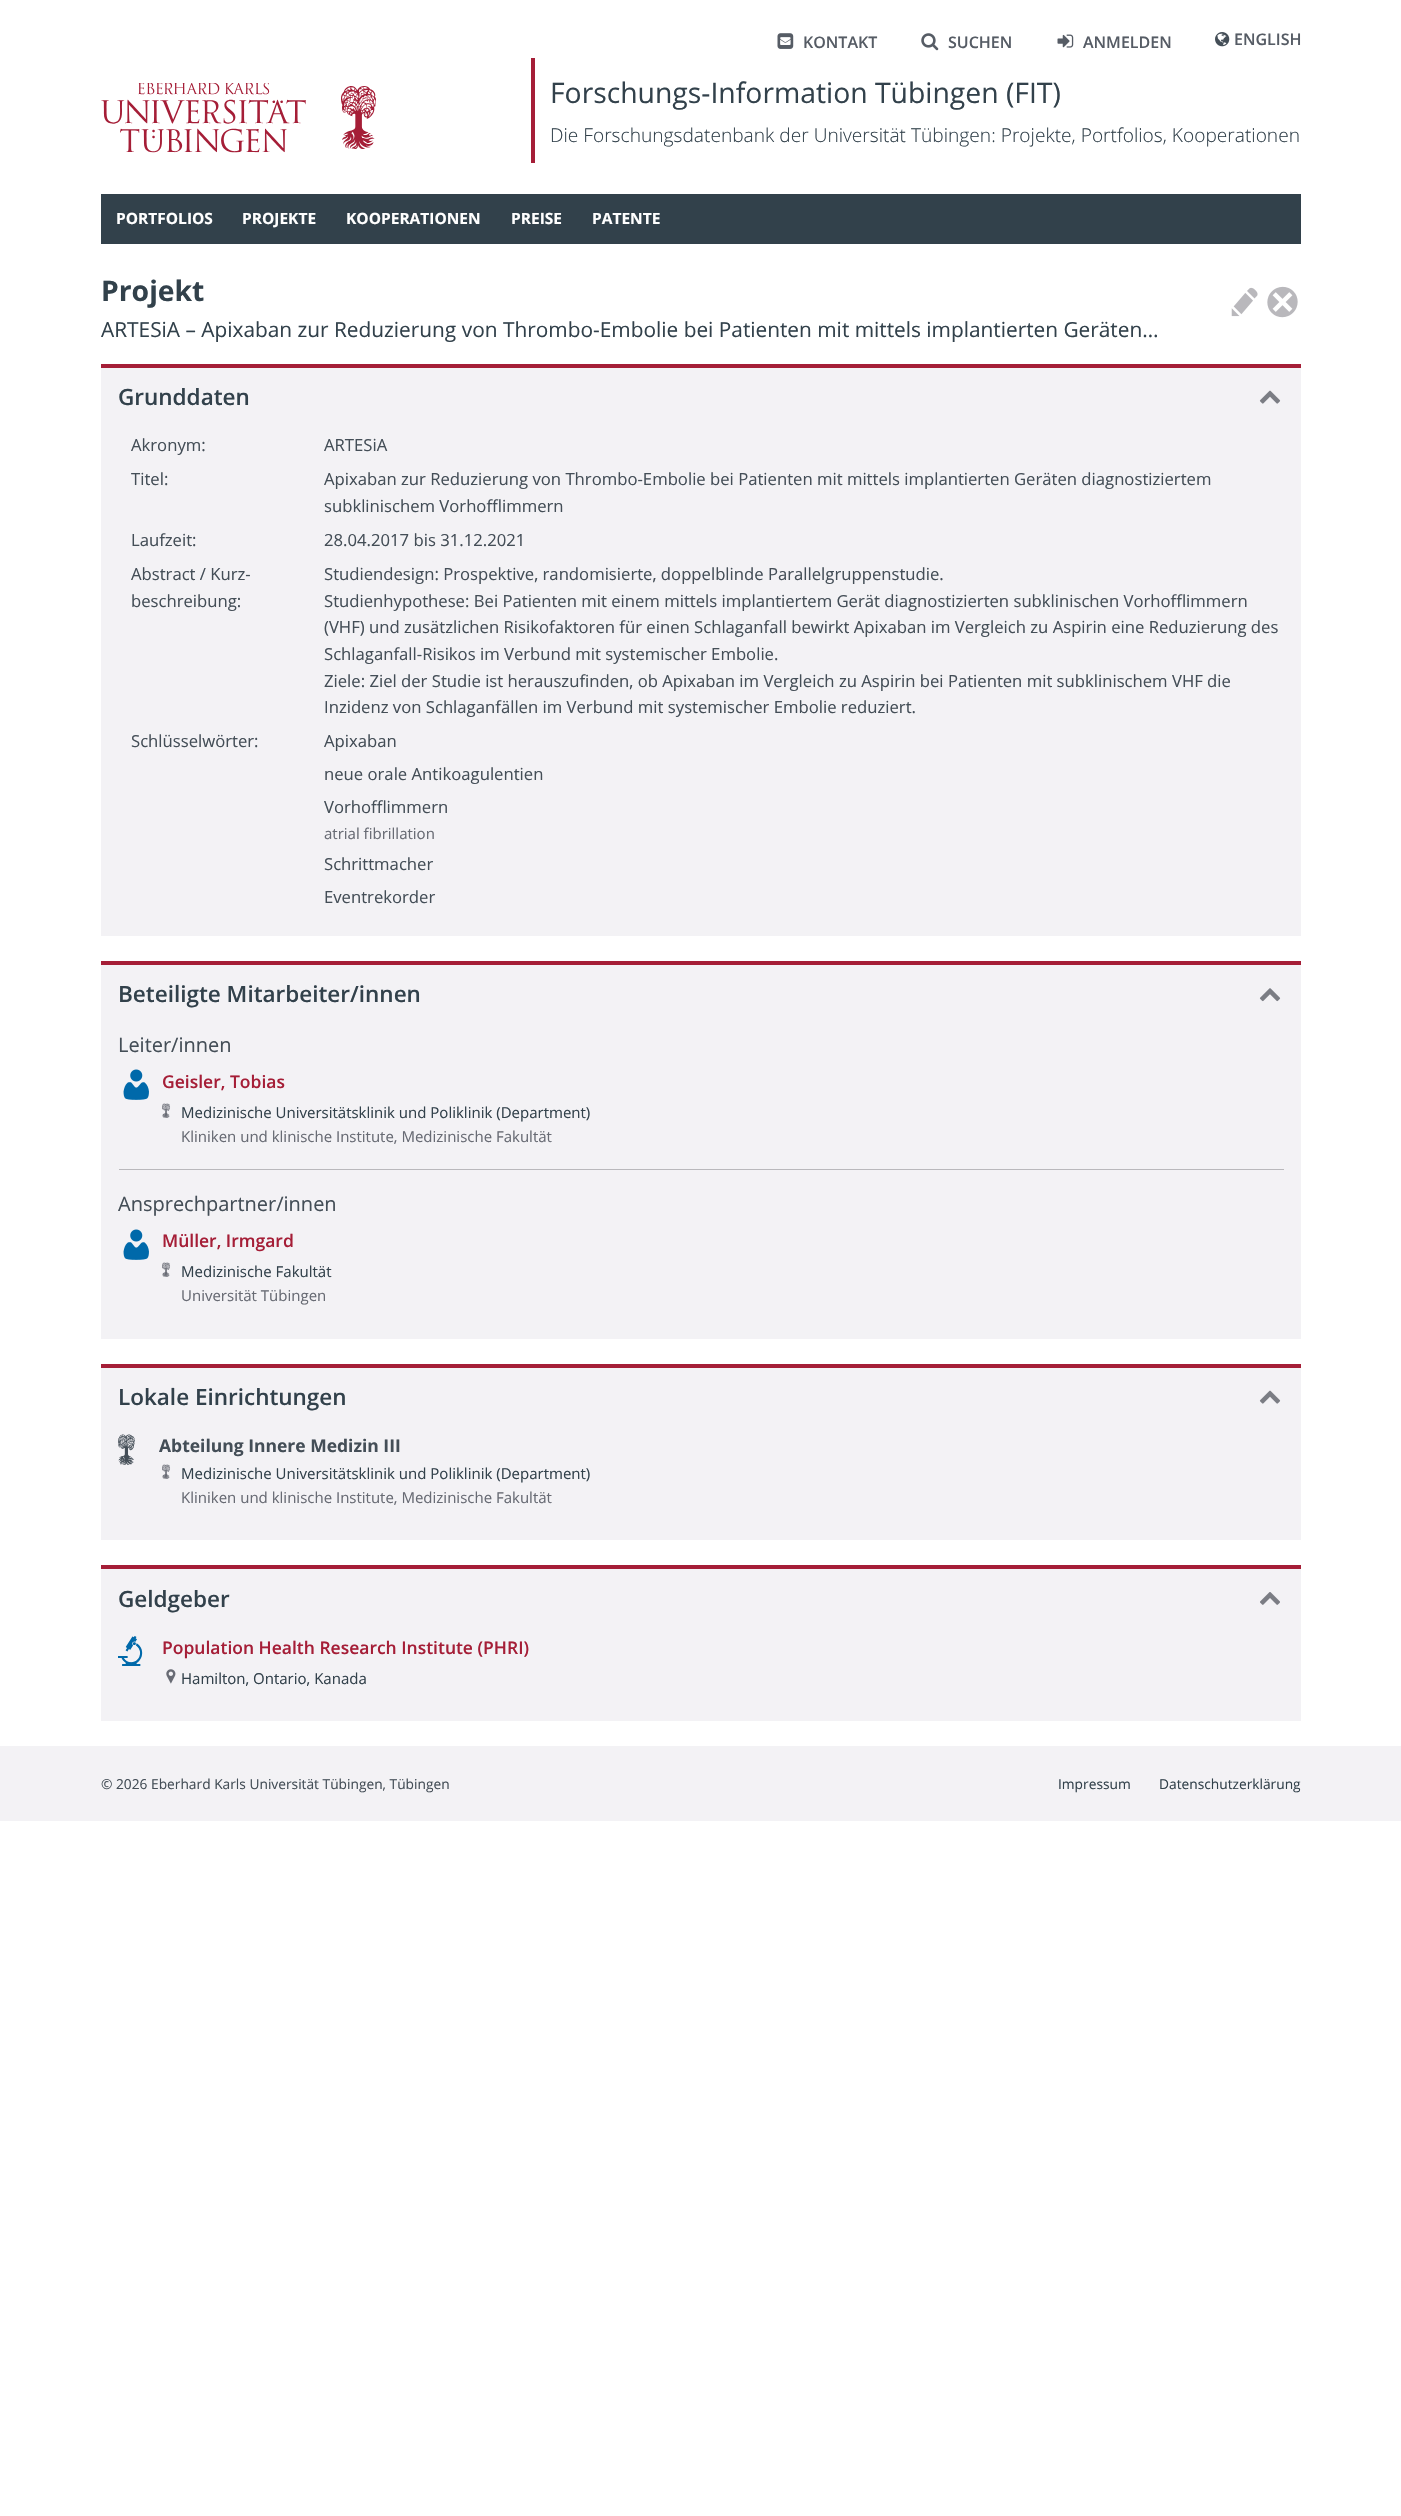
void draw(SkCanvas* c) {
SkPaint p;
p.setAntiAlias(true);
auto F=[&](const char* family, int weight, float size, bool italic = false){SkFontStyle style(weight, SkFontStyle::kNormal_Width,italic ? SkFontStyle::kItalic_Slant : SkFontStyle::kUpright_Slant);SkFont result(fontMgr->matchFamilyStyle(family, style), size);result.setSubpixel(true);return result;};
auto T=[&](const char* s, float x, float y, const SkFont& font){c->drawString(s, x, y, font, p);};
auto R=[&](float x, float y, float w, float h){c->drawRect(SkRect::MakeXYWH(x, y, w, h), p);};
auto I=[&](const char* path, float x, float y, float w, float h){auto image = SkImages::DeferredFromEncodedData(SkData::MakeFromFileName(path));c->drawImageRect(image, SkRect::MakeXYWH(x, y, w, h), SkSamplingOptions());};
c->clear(0xffffffff);
I("1.png",777,33,17,16);
auto f1 = F("Open Sans",600,16);
p.setColor(0xff565c65);
T("KONTAKT",803,48,f1);
I("2.png",921,33,18,18);
T("SUCHEN",948,48,f1);
I("3.png",1057,34,17,14);
T("ANMELDEN",1083,48,f1);
I("4.png",1215,32,15,15);
T("ENGLISH",1234,45,f1);
I("5.png",101,83,275,70);
p.setColor(0xffa51e37);
R(531,58,4,105);
auto f2 = F("Open Sans",400,28.3);
p.setColor(0xff32414b);
T("Forschungs-Information Tübingen (FIT)",550,103,f2);
auto f3 = F("Open Sans",300,19.15);
T("Die Forschungsdatenbank der Universität Tübingen: Projekte, Portfolios, Kooperationen",550,142,f3);
R(101,194,1200,50);
auto f4 = F("Open Sans",700,15.5);
p.setColor(0xffffffff);
T("PORTFOLIOS",116,224,f4);
T("PROJEKTE",242,224,f4);
T("KOOPERATIONEN",346,224,f4);
T("PREISE",511,224,f4);
T("PATENTE",592,224,f4);
auto f5 = F("Open Sans",700,28.3);
p.setColor(0xff32414b);
T("Projekt",101,301,f5);
auto f6 = F("Open Sans",400,20.83);
T("ARTESiA – Apixaban zur Reduzierung von Thrombo-Embolie bei Patienten mit mittels implantierten Geräten…",101,337,f6);
I("6.png",1231,287,27,30);
I("7.png",1267,286,31,32);
p.setColor(0xfff3f2f5);
R(101,368,1200,568);
p.setColor(0xffa51e37);
R(101,364,1200,4);
auto f7 = F("Open Sans",600,22.5);
p.setColor(0xff32414b);
T("Grunddaten",118,405,f7);
I("8.png",1259,390,22,14);
auto f8 = F("Open Sans",400,16.67);
p.setColor(0xff444e57);
T("Akronym:",131,451,f8);
T("ARTESiA",324,451,f8);
T("Titel:",131,485,f8);
T("Apixaban zur Reduzierung von Thrombo-Embolie bei Patienten mit mittels implantierten Geräten diagnostiziertem",324,485,f8);
T("subklinischem Vorhofflimmern",324,512,f8);
T("Laufzeit:",131,546,f8);
T("28.04.2017 bis 31.12.2021",324,546,f8);
T("Abstract / Kurz-",131,580,f8);
T("beschreibung:",131,607,f8);
T("Studiendesign: Prospektive, randomisierte, doppelblinde Parallelgruppenstudie.",324,580,f8);
T("Studienhypothese: Bei Patienten mit einem mittels implantiertem Gerät diagnostizierten subklinischen Vorhofflimmern",324,607,f8);
T("(VHF) und zusätzlichen Risikofaktoren für einen Schlaganfall bewirkt Apixaban im Vergleich zu Aspirin eine Reduzierung des",324,633,f8);
T("Schlaganfall-Risikos im Verbund mit systemischer Embolie.",324,660,f8);
T("Ziele: Ziel der Studie ist herauszufinden, ob Apixaban im Vergleich zu Aspirin bei Patienten mit subklinischem VHF die",324,687,f8);
T("Inzidenz von Schlaganfällen im Verbund mit systemischer Embolie reduziert.",324,713,f8);
T("Schlüsselwörter:",131,747,f8);
T("Apixaban",324,747,f8);
T("neue orale Antikoagulentien",324,780,f8);
T("Vorhofflimmern",324,813,f8);
auto f9 = F("Open Sans",400,15);
p.setColor(0xff686b74);
T("atrial fibrillation",324,839,f9);
p.setColor(0xff444e57);
T("Schrittmacher",324,870,f8);
T("Eventrekorder",324,903,f8);
p.setColor(0xfff3f2f5);
R(101,965,1200,374);
p.setColor(0xffa51e37);
R(101,961,1200,4);
p.setColor(0xff32414b);
T("Beteiligte Mitarbeiter/innen",118,1002,f7);
I("9.png",1259,988,22,14);
auto f10 = F("Open Sans",400,20);
p.setColor(0xff444e57);
T("Leiter/innen",118,1052,f10);
I("10.png",123,1069,26,31);
auto f11 = F("Open Sans",600,17.5);
p.setColor(0xffa51e37);
T("Geisler, Tobias",162,1088,f11);
auto f12 = F("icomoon",400,16.67);
p.setColor(0xff686b74);
T("@",162,1118,f12);
p.setColor(0xff32414b);
T("Medizinische Universitätsklinik und Poliklinik (Department)",181,1118,f9);
p.setColor(0xff686b74);
T("Kliniken und klinische Institute, Medizinische Fakultät",181,1142,f9);
p.setColor(0xffb9b8bc);
R(119,1169,1165,1);
p.setColor(0xff444e57);
T("Ansprechpartner/innen",118,1211,f10);
I("10.png",123,1229,26,31);
p.setColor(0xffa51e37);
T("Müller, Irmgard",162,1247,f11);
p.setColor(0xff686b74);
T("@",162,1277,f12);
p.setColor(0xff32414b);
T("Medizinische Fakultät",181,1277,f9);
p.setColor(0xff686b74);
T("Universität Tübingen",181,1301,f9);
p.setColor(0xfff3f2f5);
R(101,1368,1200,172);
p.setColor(0xffa51e37);
R(101,1364,1200,4);
p.setColor(0xff32414b);
T("Lokale Einrichtungen",118,1405,f7);
I("8.png",1259,1390,22,14);
auto f13 = F("icomoon",400,35);
p.setColor(0xff444e57);
T("@",118,1465,f13);
auto f14 = F("Open Sans",700,17.5);
T("Abteilung Innere Medizin III",159,1452,f14);
p.setColor(0xff686b74);
T("@",162,1479,f12);
p.setColor(0xff32414b);
T("Medizinische Universitätsklinik und Poliklinik (Department)",181,1479,f9);
p.setColor(0xff686b74);
T("Kliniken und klinische Institute, Medizinische Fakultät",181,1503,f9);
p.setColor(0xfff3f2f5);
R(101,1569,1200,152);
p.setColor(0xffa51e37);
R(101,1565,1200,4);
p.setColor(0xff32414b);
T("Geldgeber",118,1607,f7);
I("11.png",1260,1592,20,13);
p.setColor(0xff0069aa);
T("+",118,1666,f13);
p.setColor(0xffa51e37);
T("Population Health Research Institute (PHRI)",162,1654,f11);
I("12.png",166,1669,10,15);
p.setColor(0xff32414b);
T("Hamilton, Ontario, Kanada",181,1684,f9);
p.setColor(0xfff3f2f5);
R(0,1746,1401,75);
auto f15 = F("Open Sans",400,13.75);
p.setColor(0xff444e57);
T("© 2026 Eberhard Karls Universität Tübingen, Tübingen",101,1789,f15);
p.setColor(0xff32414b);
T("Impressum",1058,1789,f15);
T("Datenschutzerklärung",1159,1789,f15);
}
